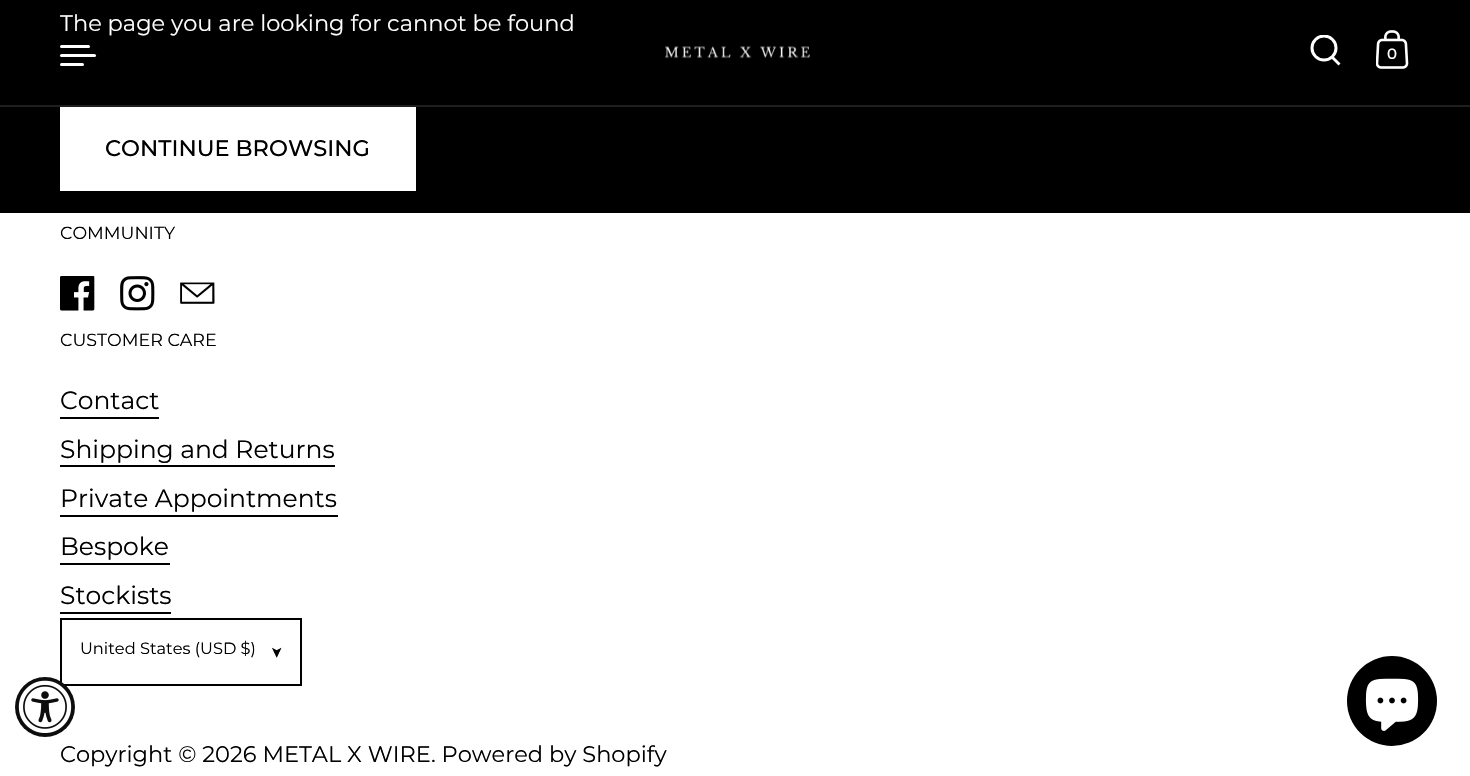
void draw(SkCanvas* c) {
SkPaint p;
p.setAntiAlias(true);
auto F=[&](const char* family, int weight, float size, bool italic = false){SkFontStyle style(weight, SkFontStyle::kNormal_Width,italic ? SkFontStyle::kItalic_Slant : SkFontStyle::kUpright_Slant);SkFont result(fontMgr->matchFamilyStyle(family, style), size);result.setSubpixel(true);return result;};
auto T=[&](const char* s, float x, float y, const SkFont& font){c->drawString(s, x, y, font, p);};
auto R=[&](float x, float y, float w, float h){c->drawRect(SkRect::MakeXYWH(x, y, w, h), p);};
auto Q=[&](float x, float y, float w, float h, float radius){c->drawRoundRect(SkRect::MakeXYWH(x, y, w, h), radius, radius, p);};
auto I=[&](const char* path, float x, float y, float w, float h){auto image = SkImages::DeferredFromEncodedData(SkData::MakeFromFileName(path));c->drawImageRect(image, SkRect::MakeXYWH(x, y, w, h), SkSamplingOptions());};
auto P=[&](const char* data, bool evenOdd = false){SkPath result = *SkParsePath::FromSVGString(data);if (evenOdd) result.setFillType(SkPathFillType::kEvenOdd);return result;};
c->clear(0xff000000);
auto f1 = F("Montserrat",400,22.5);
p.setColor(0xffffffff);
T("The page you are looking for cannot be found",60,31,f1);
R(60,107,356,84);
auto f2 = F("Montserrat",500,22.5);
p.setColor(0xff000000);
T("CONTINUE BROWSING",105,156,f2);
p.setColor(0xffffffff);
R(0,213,1470,563);
auto f3 = F("Montserrat",400,17.5);
p.setColor(0xff000000);
T("COMMUNITY",60,239,f3);
I("1.png",60,276,35,35);
I("2.png",120,276,35,35);
I("3.png",180,282,35,22);
T("CUSTOMER CARE",60,346,f3);
auto f4 = F("Montserrat",400,25);
T("Contact",60,409,f4);
R(60,417,99,2);
T("Shipping and Returns",60,458,f4);
R(60,465,275,2);
T("Private Appointments",60,507,f4);
R(60,515,278,2);
T("Bespoke",60,555,f4);
R(60,563,110,2);
T("Stockists",60,604,f4);
R(60,612,111,2);
p.setStroke(true);
p.setStrokeWidth(2);
c->drawRect(SkRect::MakeXYWH(61,619,240,66),p);
auto f5 = F("Montserrat",400,16.25);
p.setStroke(false);
T("United States (USD $)",80,654,f5);
auto f6 = F("DejaVu Sans",400,15);
c->save();
c->rotate(90,272,646);
T("➤",272,646,f6);
c->restore();
T("Copyright © 2026 METAL X WIRE. Powered by Shopify",60,762,f1);
p.setColor(0xff1f1f1f);
R(0,105,1470,2);
p.setColor(0xffffffff);
Q(60,45,30,3,1.5);
Q(60,54,36,3,1.5);
Q(60,63,24,3,1.5);
I("4.png",665,46,145,13);
c->save();
c->clipRect(SkRect::MakeXYWH(1310,35,33,31));
p.setStroke(true);
p.setStrokeWidth(3);
c->drawCircle(1324,48,12,p);
c->restore();
p.setStroke(false);
c->drawPath(P("M1331.5 58.5l2-2l7 7l-2 2z"),p);
I("5.png",1376,30,33,39);
auto f7 = F("Montserrat",500,15);
T("0",1387,59,f7);
p.setColor(0xff0d0d0d);
c->drawCircle(45,707,30,p);
I("6.png",18,680,54,53);
p.setColor(0xff000000);
c->drawCircle(1392,701,45,p);
I("7.png",1365,678,54,53);
}
